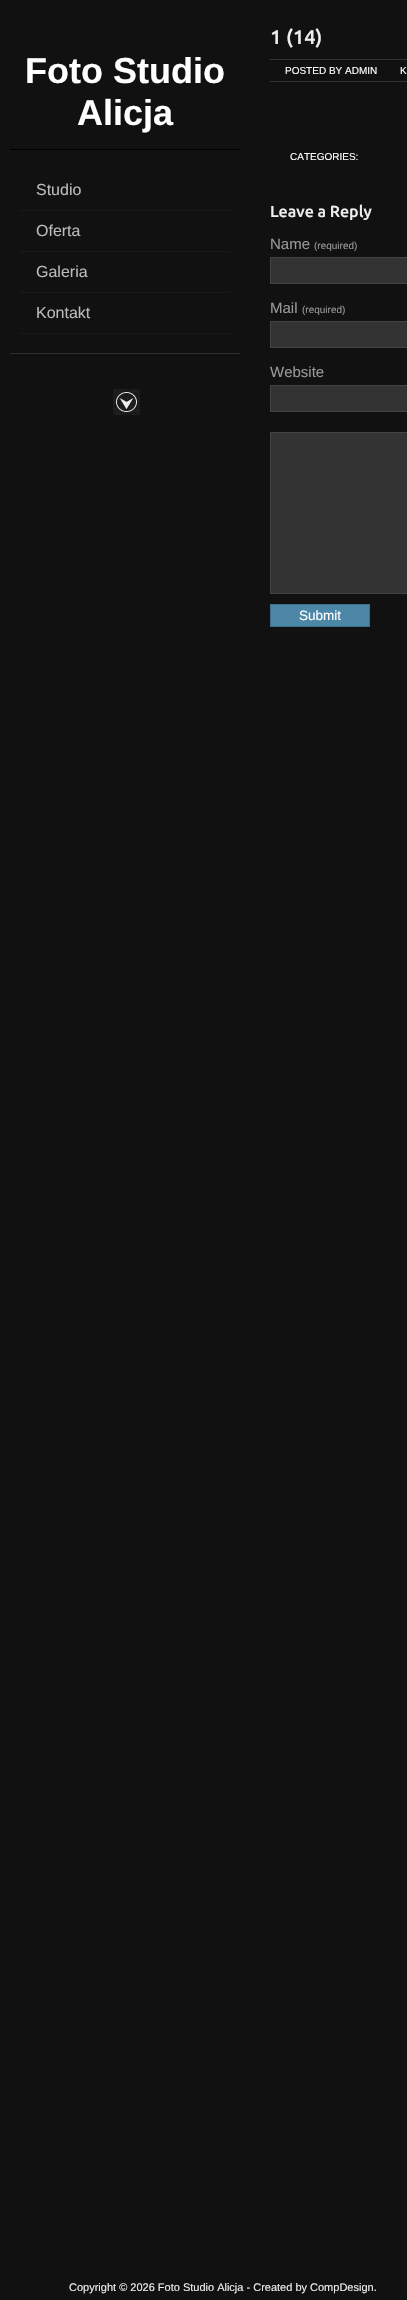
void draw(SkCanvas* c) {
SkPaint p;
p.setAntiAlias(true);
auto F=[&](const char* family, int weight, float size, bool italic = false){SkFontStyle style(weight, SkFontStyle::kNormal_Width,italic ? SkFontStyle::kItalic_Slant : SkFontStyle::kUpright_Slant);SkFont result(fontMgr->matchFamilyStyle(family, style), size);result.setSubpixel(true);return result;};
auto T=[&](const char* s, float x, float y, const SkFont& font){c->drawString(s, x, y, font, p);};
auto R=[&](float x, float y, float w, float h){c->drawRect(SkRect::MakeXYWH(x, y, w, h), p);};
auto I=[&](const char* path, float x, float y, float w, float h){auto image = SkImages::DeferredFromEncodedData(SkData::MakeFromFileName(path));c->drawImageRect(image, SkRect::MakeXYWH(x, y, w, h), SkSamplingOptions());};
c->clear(0xff111111);
p.setColor(0xff000000);
R(10,149,230,1);
auto f1 = F("Liberation Sans",700,36);
p.setColor(0xffffffff);
T("Foto Studio",25,83,f1);
T("Alicja",77,125,f1);
p.setColor(0xff191919);
R(20,210,210,1);
auto f2 = F("Liberation Sans",400,16);
p.setColor(0xffbbbbbb);
T("Studio",36,195,f2);
p.setColor(0xff191919);
R(20,251,210,1);
p.setColor(0xffbbbbbb);
T("Oferta",36,236,f2);
p.setColor(0xff191919);
R(20,292,210,1);
p.setColor(0xffbbbbbb);
T("Galeria",36,277,f2);
p.setColor(0xff191919);
R(20,333,210,1);
p.setColor(0xffbbbbbb);
T("Kontakt",36,318,f2);
p.setColor(0xff302f2f);
R(10,353,230,1);
I("1.png",113,389,27,26);
auto f3 = F("Ubuntu",500,20);
p.setColor(0xffeeeeee);
T("1 (14)",270,44,f3);
p.setColor(0xff333333);
R(270,59,137,1);
R(270,81,137,1);
auto f4 = F("Liberation Sans",400,10);
p.setColor(0xffffffff);
T("POSTED BY ADMIN",285,74,f4);
T("K",400,74,f4);
T("CATEGORIES:",290,160,f4);
auto f5 = F("Ubuntu",500,16);
p.setColor(0xffeeeeee);
T("Leave a Reply",270,217,f5);
auto f6 = F("Liberation Sans",400,15);
p.setColor(0xff999999);
T("Name",270,249,f6);
T("(required)",314,249,f4);
p.setColor(0xff333333);
c->drawRect(SkRect::MakeXYWH(270.5,257.5,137,26),p);
p.setStroke(true);
p.setStrokeWidth(1);
p.setColor(0xff444444);
c->drawRect(SkRect::MakeXYWH(270.5,257.5,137,26),p);
p.setStroke(false);
p.setColor(0xff999999);
T("Mail",270,313,f6);
T("(required)",302,313,f4);
p.setColor(0xff333333);
c->drawRect(SkRect::MakeXYWH(270.5,321.5,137,26),p);
p.setStroke(true);
p.setColor(0xff444444);
c->drawRect(SkRect::MakeXYWH(270.5,321.5,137,26),p);
p.setStroke(false);
p.setColor(0xff999999);
T("Website",270,377,f6);
p.setColor(0xff333333);
c->drawRect(SkRect::MakeXYWH(270.5,385.5,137,26),p);
p.setStroke(true);
p.setColor(0xff444444);
c->drawRect(SkRect::MakeXYWH(270.5,385.5,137,26),p);
p.setStroke(false);
p.setColor(0xff333333);
c->drawRect(SkRect::MakeXYWH(270.5,432.5,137,161),p);
p.setStroke(true);
p.setColor(0xff444444);
c->drawRect(SkRect::MakeXYWH(270.5,432.5,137,161),p);
p.setStroke(false);
p.setColor(0xff4d87a7);
c->drawRect(SkRect::MakeXYWH(270.5,604.5,99,22),p);
p.setStroke(true);
p.setColor(0xff3c708c);
c->drawRect(SkRect::MakeXYWH(270.5,604.5,99,22),p);
auto f7 = F("Liberation Sans",400,13.5);
p.setStroke(false);
p.setColor(0xffffffff);
T("Submit",299,620,f7);
auto f8 = F("Liberation Sans",400,11);
p.setColor(0xffeeeeee);
T("Copyright © 2026 Foto Studio Alicja - Created by CompDesign.",69,2291,f8);
}
